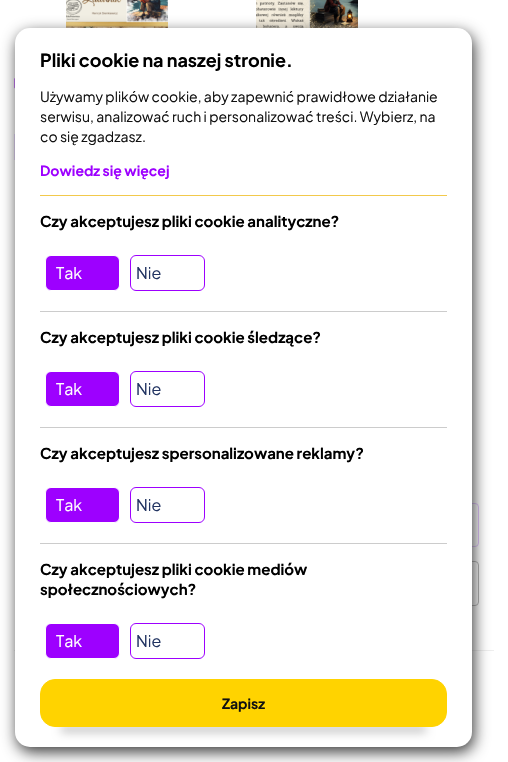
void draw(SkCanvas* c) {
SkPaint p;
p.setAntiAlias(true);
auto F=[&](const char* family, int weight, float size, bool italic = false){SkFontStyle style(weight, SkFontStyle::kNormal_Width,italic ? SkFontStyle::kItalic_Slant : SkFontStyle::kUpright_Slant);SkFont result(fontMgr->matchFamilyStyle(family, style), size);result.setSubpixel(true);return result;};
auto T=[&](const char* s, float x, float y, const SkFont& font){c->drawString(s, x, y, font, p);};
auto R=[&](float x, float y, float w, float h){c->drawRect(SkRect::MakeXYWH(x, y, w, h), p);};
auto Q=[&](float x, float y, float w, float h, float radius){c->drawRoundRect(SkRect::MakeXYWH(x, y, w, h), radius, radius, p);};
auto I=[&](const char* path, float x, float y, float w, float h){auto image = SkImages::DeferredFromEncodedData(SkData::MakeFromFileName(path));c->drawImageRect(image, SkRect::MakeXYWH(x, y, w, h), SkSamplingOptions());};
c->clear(0xffffffff);
I("1.png",66,0,102,28);
I("2.png",256,0,102,28);
I("3.png",14,78,1,11);
p.setColor(0xffeadaff);
R(14,134,1,26);
p.setStroke(true);
p.setStrokeWidth(1);
p.setColor(0xffe1c2ff);
c->drawRoundRect(SkRect::MakeXYWH(396.5,503.5,82,43),3.5,3.5,p);
p.setColor(0xffb1b1b1);
c->drawRoundRect(SkRect::MakeXYWH(29.5,561.5,449,44),3.5,3.5,p);
p.setStroke(false);
p.setColor(0xffeeeeee);
R(14,650,480,1);
p.setColor(0xff393939);
p.setMaskFilter(SkMaskFilter::MakeBlur(kNormal_SkBlurStyle, 7.5));
c->drawRoundRect(SkRect::MakeXYWH(17,33,457,719),15,15,p);
p.setMaskFilter(nullptr);
p.setColor(0xffffffff);
Q(15,28,457,719,15);
auto f1 = F("Plus Jakarta Sans",700,18);
p.setColor(0xff000000);
T("Pliki cookie na naszej stronie.",40,67,f1);
auto f2 = F("Plus Jakarta Sans",400,14);
p.setColor(0xff111111);
T("Używamy plików cookie, aby zapewnić prawidłowe działanie",40,102,f2);
T("serwisu, analizować ruch i personalizować treści. Wybierz, na",40,122,f2);
T("co się zgadzasz.",40,142,f2);
auto f3 = F("Plus Jakarta Sans",700,14);
p.setColor(0xff9d00ff);
T("Dowiedz się więcej",40,176,f3);
p.setColor(0xfff2c94c);
R(40,195,407,1);
p.setColor(0xffcccccc);
R(40,311,407,1);
auto f4 = F("Plus Jakarta Sans",700,15);
p.setColor(0xff000000);
T("Czy akceptujesz pliki cookie analityczne?",40,227,f4);
p.setColor(0xff9d00ff);
c->drawRoundRect(SkRect::MakeXYWH(45.5,255.5,74,35),5.5,5.5,p);
p.setStroke(true);
p.setColor(0xffffffff);
c->drawRoundRect(SkRect::MakeXYWH(45.5,255.5,74,35),5.5,5.5,p);
auto f5 = F("Plus Jakarta Sans",400,16);
p.setStroke(false);
T("Tak",56,279,f5);
p.setStroke(true);
p.setColor(0xff9d00ff);
c->drawRoundRect(SkRect::MakeXYWH(130.5,255.5,74,35),5.5,5.5,p);
p.setStroke(false);
p.setColor(0xff223462);
T("Nie",136,279,f5);
p.setColor(0xffcccccc);
R(40,427,407,1);
p.setColor(0xff000000);
T("Czy akceptujesz pliki cookie śledzące?",40,343,f4);
p.setColor(0xff9d00ff);
c->drawRoundRect(SkRect::MakeXYWH(45.5,371.5,74,35),5.5,5.5,p);
p.setStroke(true);
p.setColor(0xffffffff);
c->drawRoundRect(SkRect::MakeXYWH(45.5,371.5,74,35),5.5,5.5,p);
p.setStroke(false);
T("Tak",56,395,f5);
p.setStroke(true);
p.setColor(0xff9d00ff);
c->drawRoundRect(SkRect::MakeXYWH(130.5,371.5,74,35),5.5,5.5,p);
p.setStroke(false);
p.setColor(0xff223462);
T("Nie",136,395,f5);
p.setColor(0xffcccccc);
R(40,543,407,1);
p.setColor(0xff000000);
T("Czy akceptujesz spersonalizowane reklamy?",40,459,f4);
p.setColor(0xff9d00ff);
c->drawRoundRect(SkRect::MakeXYWH(45.5,487.5,74,35),5.5,5.5,p);
p.setStroke(true);
p.setColor(0xffffffff);
c->drawRoundRect(SkRect::MakeXYWH(45.5,487.5,74,35),5.5,5.5,p);
p.setStroke(false);
T("Tak",56,511,f5);
p.setStroke(true);
p.setColor(0xff9d00ff);
c->drawRoundRect(SkRect::MakeXYWH(130.5,487.5,74,35),5.5,5.5,p);
p.setStroke(false);
p.setColor(0xff223462);
T("Nie",136,511,f5);
p.setColor(0xff000000);
T("Czy akceptujesz pliki cookie mediów",40,575,f4);
T("społecznościowych?",40,595,f4);
p.setColor(0xff9d00ff);
c->drawRoundRect(SkRect::MakeXYWH(45.5,623.5,74,35),5.5,5.5,p);
p.setStroke(true);
p.setColor(0xffffffff);
c->drawRoundRect(SkRect::MakeXYWH(45.5,623.5,74,35),5.5,5.5,p);
p.setStroke(false);
T("Tak",56,647,f5);
p.setStroke(true);
p.setColor(0xff9d00ff);
c->drawRoundRect(SkRect::MakeXYWH(130.5,623.5,74,35),5.5,5.5,p);
p.setStroke(false);
p.setColor(0xff223462);
T("Nie",136,647,f5);
p.setColor(0x47000000);
p.setMaskFilter(SkMaskFilter::MakeBlur(kNormal_SkBlurStyle, 5));
c->drawRect(SkRect::MakeXYWH(61,726,365,6),p);
p.setMaskFilter(nullptr);
p.setColor(0xffffd300);
c->drawRoundRect(SkRect::MakeXYWH(40.5,679.5,406,47),14.5,14.5,p);
p.setStroke(true);
c->drawRoundRect(SkRect::MakeXYWH(40.5,679.5,406,47),14.5,14.5,p);
p.setStroke(false);
p.setColor(0xff111111);
T("Zapisz",222,709,f3);
}
